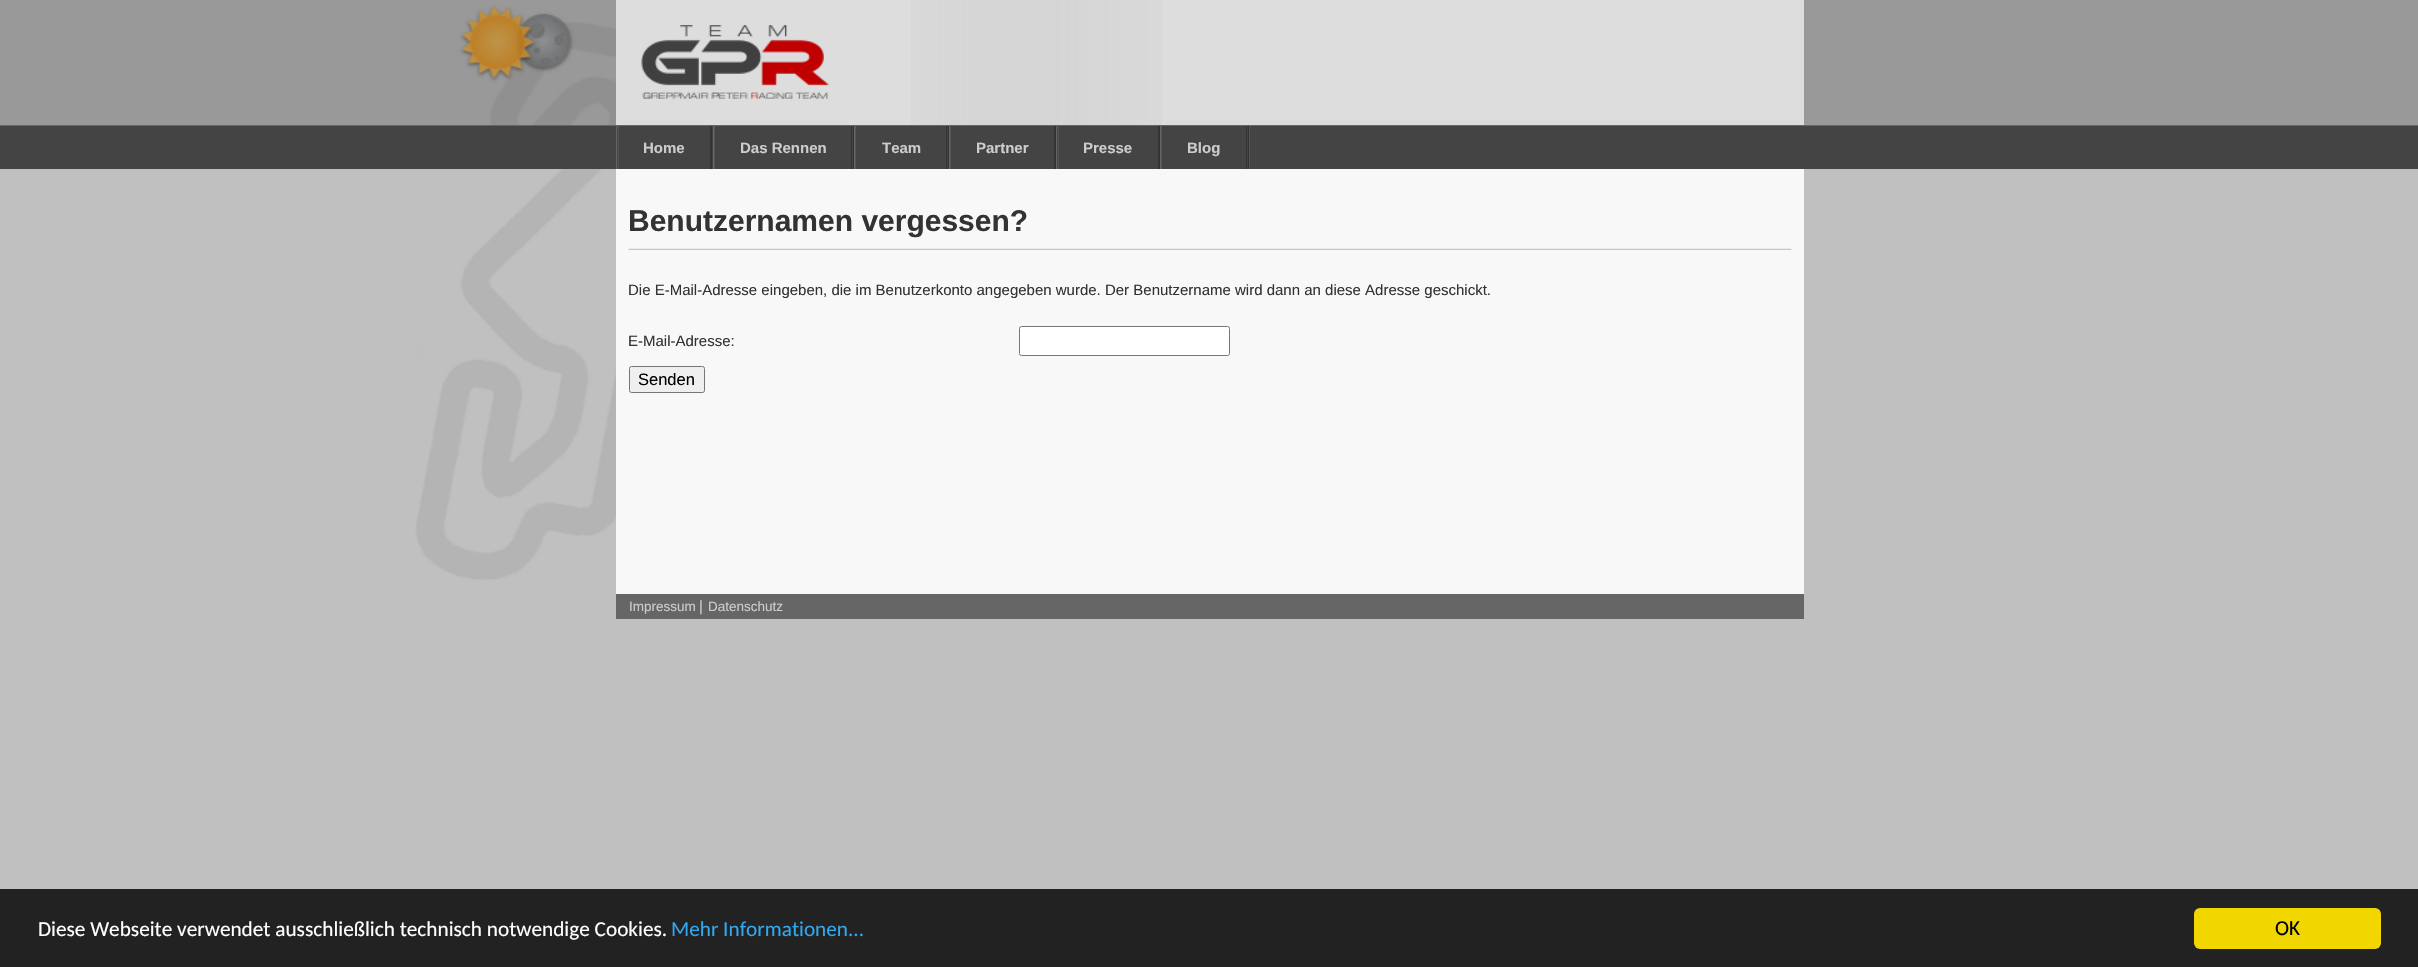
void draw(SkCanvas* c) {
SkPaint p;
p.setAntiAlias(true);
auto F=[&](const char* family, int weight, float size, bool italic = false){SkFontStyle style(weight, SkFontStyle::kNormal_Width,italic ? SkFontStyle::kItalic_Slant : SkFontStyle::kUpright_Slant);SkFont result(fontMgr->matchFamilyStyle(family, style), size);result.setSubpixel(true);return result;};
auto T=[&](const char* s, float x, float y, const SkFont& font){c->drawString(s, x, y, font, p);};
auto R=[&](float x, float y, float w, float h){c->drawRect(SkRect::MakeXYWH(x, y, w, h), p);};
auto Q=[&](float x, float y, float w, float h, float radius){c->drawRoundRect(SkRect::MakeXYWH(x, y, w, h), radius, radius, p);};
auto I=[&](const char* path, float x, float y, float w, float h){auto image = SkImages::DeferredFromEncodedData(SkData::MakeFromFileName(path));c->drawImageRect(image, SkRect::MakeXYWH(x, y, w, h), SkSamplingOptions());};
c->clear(0xffc0c0c0);
I("1.png",415,5,201,575);
p.setColor(0x40242424);
R(0,0,2418,125);
p.setColor(0xffdddddd);
R(616,0,1188,125);
I("2.png",641,25,188,74);
I("3.png",911,0,251,125);
p.setColor(0xff444444);
R(0,126,2418,43);
p.setColor(0xff666666);
R(0,125,2418,1);
p.setColor(0xff555555);
R(1249,126,1,43);
p.setColor(0xff333333);
R(710,126,2,43);
p.setColor(0xff666666);
R(616,126,1,43);
p.setColor(0xff555555);
R(618,126,1,43);
auto f1 = F("Liberation Sans",700,15);
p.setColor(0xffcccccc);
T("Home",643,153,f1);
p.setColor(0xff333333);
R(853,126,1,43);
p.setColor(0xff666666);
R(713,126,1,43);
p.setColor(0xff333333);
R(851,126,1,43);
p.setColor(0xff555555);
R(714,126,1,43);
p.setColor(0xffcccccc);
T("Das Rennen",740,153,f1);
p.setColor(0xff333333);
R(948,126,1,43);
p.setColor(0xff666666);
R(854,126,1,43);
p.setColor(0xff333333);
R(946,126,1,43);
p.setColor(0xff555555);
R(855,126,1,43);
p.setColor(0xffcccccc);
T("Team",882,153,f1);
p.setColor(0xff333333);
R(1054,126,2,43);
p.setColor(0xff666666);
R(949,126,1,43);
p.setColor(0xff555555);
R(950,126,1,43);
p.setColor(0xffcccccc);
T("Partner",976,153,f1);
p.setColor(0xff333333);
R(1158,126,2,43);
p.setColor(0xff666666);
R(1056,126,1,43);
p.setColor(0xff555555);
R(1058,126,1,43);
p.setColor(0xffcccccc);
T("Presse",1083,153,f1);
p.setColor(0xff333333);
R(1248,126,1,43);
p.setColor(0xff666666);
R(1160,126,1,43);
p.setColor(0xff333333);
R(1246,126,1,43);
p.setColor(0xff555555);
R(1161,126,1,43);
p.setColor(0xffcccccc);
T("Blog",1187,153,f1);
p.setColor(0xfff8f8f8);
R(616,169,1188,425);
I("4.png",628,248,1164,2);
auto f2 = F("Liberation Sans",700,30);
p.setColor(0xff333333);
T("Benutzernamen vergessen?",628,231,f2);
auto f3 = F("Liberation Sans",400,15);
T("Die E-Mail-Adresse eingeben, die im Benutzerkonto angegeben wurde. Der Benutzername wird dann an diese Adresse geschickt.",628,295,f3);
T("E-Mail-Adresse:",628,346,f3);
p.setColor(0xffffffff);
c->drawRoundRect(SkRect::MakeXYWH(1019.5,326.5,210,29),2,2,p);
p.setStroke(true);
p.setStrokeWidth(1);
p.setColor(0xff767676);
c->drawRoundRect(SkRect::MakeXYWH(1019.5,326.5,210,29),2,2,p);
p.setStroke(false);
p.setColor(0xffefefef);
c->drawRoundRect(SkRect::MakeXYWH(629.5,366.5,75,26),2,2,p);
p.setStroke(true);
p.setColor(0xff767676);
c->drawRoundRect(SkRect::MakeXYWH(629.5,366.5,75,26),2,2,p);
auto f4 = F("Liberation Sans",400,16.5);
p.setStroke(false);
p.setColor(0xff000000);
T("Senden",638,385,f4);
p.setColor(0xff666666);
R(616,594,1188,25);
auto f5 = F("Liberation Sans",400,13.5);
p.setColor(0xffcccccc);
T("Impressum",629,611,f5);
T("|",699,611,f3);
T("Datenschutz",708,611,f5);
p.setColor(0xff222222);
R(0,889,2418,78);
auto f6 = F("Carlito",400,21.25);
p.setColor(0xffffffff);
T("Diese Webseite verwendet ausschließlich technisch notwendige Cookies.",38,936,f6);
p.setColor(0xff31a8f0);
T("Mehr Informationen...",671,936,f6);
p.setColor(0xfff1d600);
Q(2194,908,187,41,6);
p.setColor(0xff000000);
T("OK",2275,935,f6);
}
